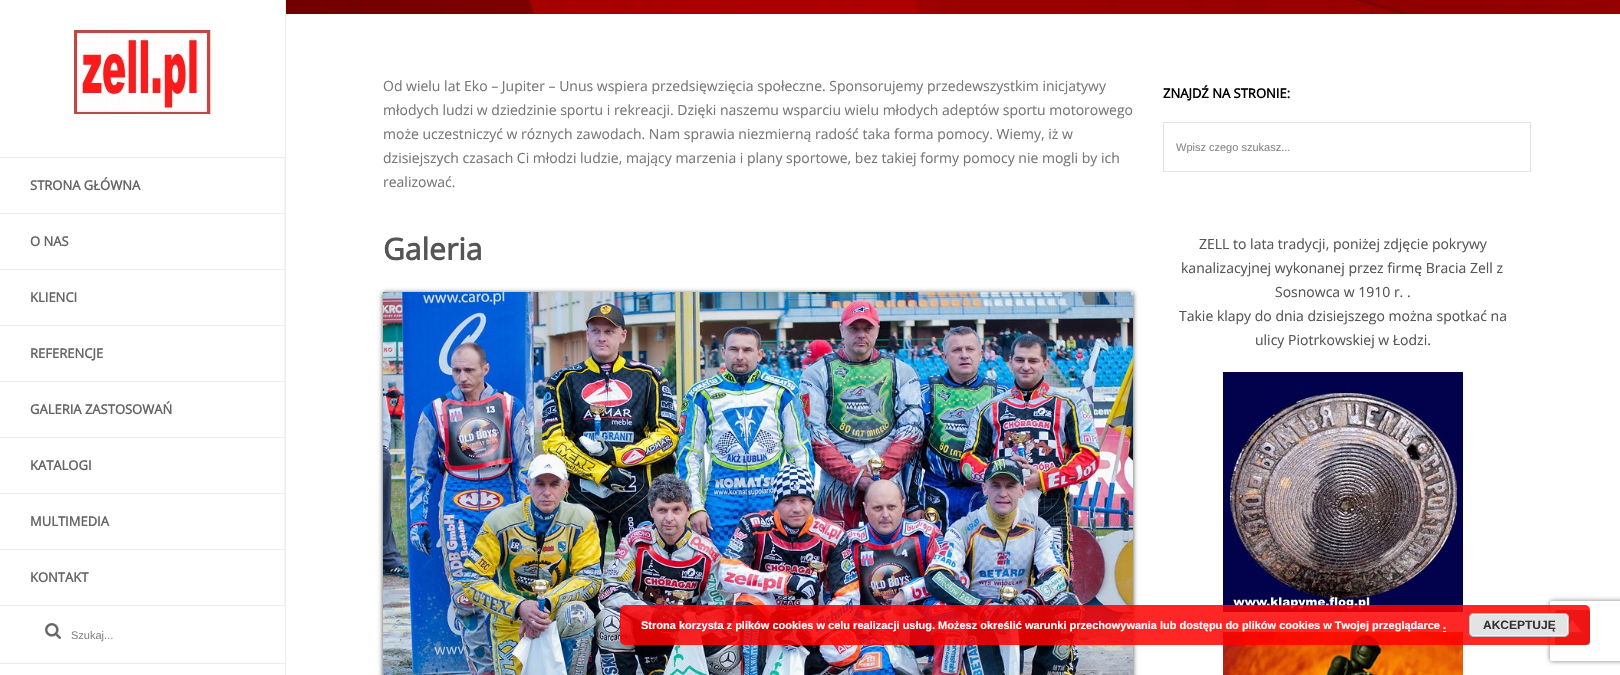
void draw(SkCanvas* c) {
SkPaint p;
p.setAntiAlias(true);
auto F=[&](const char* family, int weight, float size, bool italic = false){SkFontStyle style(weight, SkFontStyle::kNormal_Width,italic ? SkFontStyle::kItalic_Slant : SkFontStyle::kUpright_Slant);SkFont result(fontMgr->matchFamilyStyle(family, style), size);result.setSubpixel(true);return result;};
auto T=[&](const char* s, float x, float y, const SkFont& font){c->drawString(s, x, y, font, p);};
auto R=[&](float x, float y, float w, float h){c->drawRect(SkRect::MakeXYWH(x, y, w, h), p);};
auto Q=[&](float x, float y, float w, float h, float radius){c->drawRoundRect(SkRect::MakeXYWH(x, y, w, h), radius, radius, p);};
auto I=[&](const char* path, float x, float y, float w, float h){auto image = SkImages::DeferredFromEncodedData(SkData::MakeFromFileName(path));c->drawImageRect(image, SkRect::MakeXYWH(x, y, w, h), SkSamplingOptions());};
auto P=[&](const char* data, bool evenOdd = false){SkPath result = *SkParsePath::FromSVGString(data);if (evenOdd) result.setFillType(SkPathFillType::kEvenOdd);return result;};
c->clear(0xffffffff);
I("1.png",285,0,1335,14);
p.setColor(0xe6ffffff);
R(285,0,1,14);
p.setColor(0xe6ebebeb);
R(285,0,1,675);
p.setColor(0xffededed);
R(0,663,285,1);
I("2.png",74,30,137,84);
R(0,157,285,1);
p.setColor(0xfff2f2f2);
R(284,158,1,448);
p.setColor(0xffededed);
R(0,213,284,1);
auto f1 = F("Open Sans",700,13);
p.setColor(0xff666666);
T("STRONA GŁÓWNA",30,190,f1);
p.setColor(0xffededed);
R(0,269,284,1);
p.setColor(0xff666666);
T("O NAS",30,246,f1);
p.setColor(0xffededed);
R(0,325,284,1);
p.setColor(0xff666666);
T("KLIENCI",30,302,f1);
p.setColor(0xffededed);
R(0,381,284,1);
p.setColor(0xff666666);
T("REFERENCJE",30,358,f1);
p.setColor(0xffededed);
R(0,437,284,1);
p.setColor(0xff666666);
T("GALERIA ZASTOSOWAŃ",30,414,f1);
p.setColor(0xffededed);
R(0,493,284,1);
p.setColor(0xff666666);
T("KATALOGI",30,470,f1);
p.setColor(0xffededed);
R(0,549,284,1);
p.setColor(0xff666666);
T("MULTIMEDIA",30,526,f1);
p.setColor(0xffededed);
R(0,605,284,1);
p.setColor(0xff666666);
T("KONTAKT",30,582,f1);
I("3.png",45,623,16,16);
auto f2 = F("Liberation Sans",400,11);
p.setColor(0xff888888);
T("Szukaj...",71,639,f2);
auto f3 = F("Open Sans",400,14);
p.setColor(0xff777777);
T("Od wielu lat Eko – Jupiter – Unus wspiera przedsięwzięcia społeczne. Sponsorujemy przedewszystkim inicjatywy",383,91,f3);
T("młodych ludzi w dziedzinie sportu i rekreacji. Dzięki naszemu wsparciu wielu młodych adeptów sportu motorowego",383,115,f3);
T("może uczestniczyć w róznych zawodach. Nam sprawia niezmierną radość taka forma pomocy. Wiemy, iż w",383,139,f3);
T("dzisiejszych czasach Ci młodzi ludzie, mający marzenia i plany sportowe, bez takiej formy pomocy nie mogli by ich",383,163,f3);
T("realizować.",383,187,f3);
auto f4 = F("Open Sans",700,30);
p.setColor(0xff555555);
T("Galeria",383,260,f4);
p.setColor(0xff4a4a4a);
p.setMaskFilter(SkMaskFilter::MakeBlur(kNormal_SkBlurStyle, 2.5));
c->drawRect(SkRect::MakeXYWH(383,293,750,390),p);
p.setMaskFilter(nullptr);
I("4.png",383,292,750,383);
p.setColor(0xff000000);
T("ZNAJDŹ NA STRONIE:",1163,98,f1);
p.setStroke(true);
p.setStrokeWidth(1);
p.setColor(0xffe4e4e4);
c->drawRect(SkRect::MakeXYWH(1163.5,122.5,367,49),p);
c->save();
c->clipRect(SkRect::MakeXYWH(1176,141,342,12));
p.setStroke(false);
p.setColor(0xff888888);
T("Wpisz czego szukasz...",1176,151,f2);
c->restore();
p.setColor(0xff555555);
T("ZELL to lata tradycji, poniżej zdjęcie pokrywy",1199,249,f3);
T("kanalizacyjnej wykonanej przez firmę Bracia Zell z",1181,273,f3);
T("Sosnowca w 1910 r. .",1275,297,f3);
T("Takie klapy do dnia dzisiejszego można spotkać na",1179,321,f3);
T("ulicy Piotrkowskiej w Łodzi.",1255,345,f3);
I("5.png",1223,372,240,240);
I("6.png",1223,632,240,43);
I("7.png",1555,610,35,35);
c->save();
c->clipPath(P("M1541 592h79v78h-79zm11 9h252c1 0 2 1 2 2v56c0 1-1 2-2 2h-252c-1 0-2-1-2-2v-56c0-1 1-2 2-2z",true),true);
p.setColor(0xff808080);
p.setMaskFilter(SkMaskFilter::MakeBlur(kNormal_SkBlurStyle, 2.5));
c->drawRoundRect(SkRect::MakeXYWH(1550,601,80,60),2,2,p);
p.setMaskFilter(nullptr);
c->restore();
p.setColor(0xd9ff0000);
Q(620,605,970,40,5);
auto f5 = F("Liberation Sans",700,11);
p.setColor(0xffffffff);
T("Strona korzysta z plików cookies w celu realizacji usług. Możesz określić warunki przechowywania lub dostępu do plików cookies w Twojej przeglądarce .",641,629,f5);
p.setColor(0xffe3e3e3);
Q(1469,613,100,24,5);
p.setStroke(true);
p.setColor(0xfff6f6f6);
c->drawRoundRect(SkRect::MakeXYWH(1470.5,614.5,97,21),3.5,3.5,p);
p.setColor(0xffbbbbbb);
c->drawRoundRect(SkRect::MakeXYWH(1469.5,613.5,99,23),4.5,4.5,p);
auto f6 = F("Liberation Sans",700,12);
p.setStroke(false);
p.setColor(0xff333333);
T("AKCEPTUJĘ",1483,629,f6);
p.setColor(0xffffffff);
R(1443,631,3,1);
}
